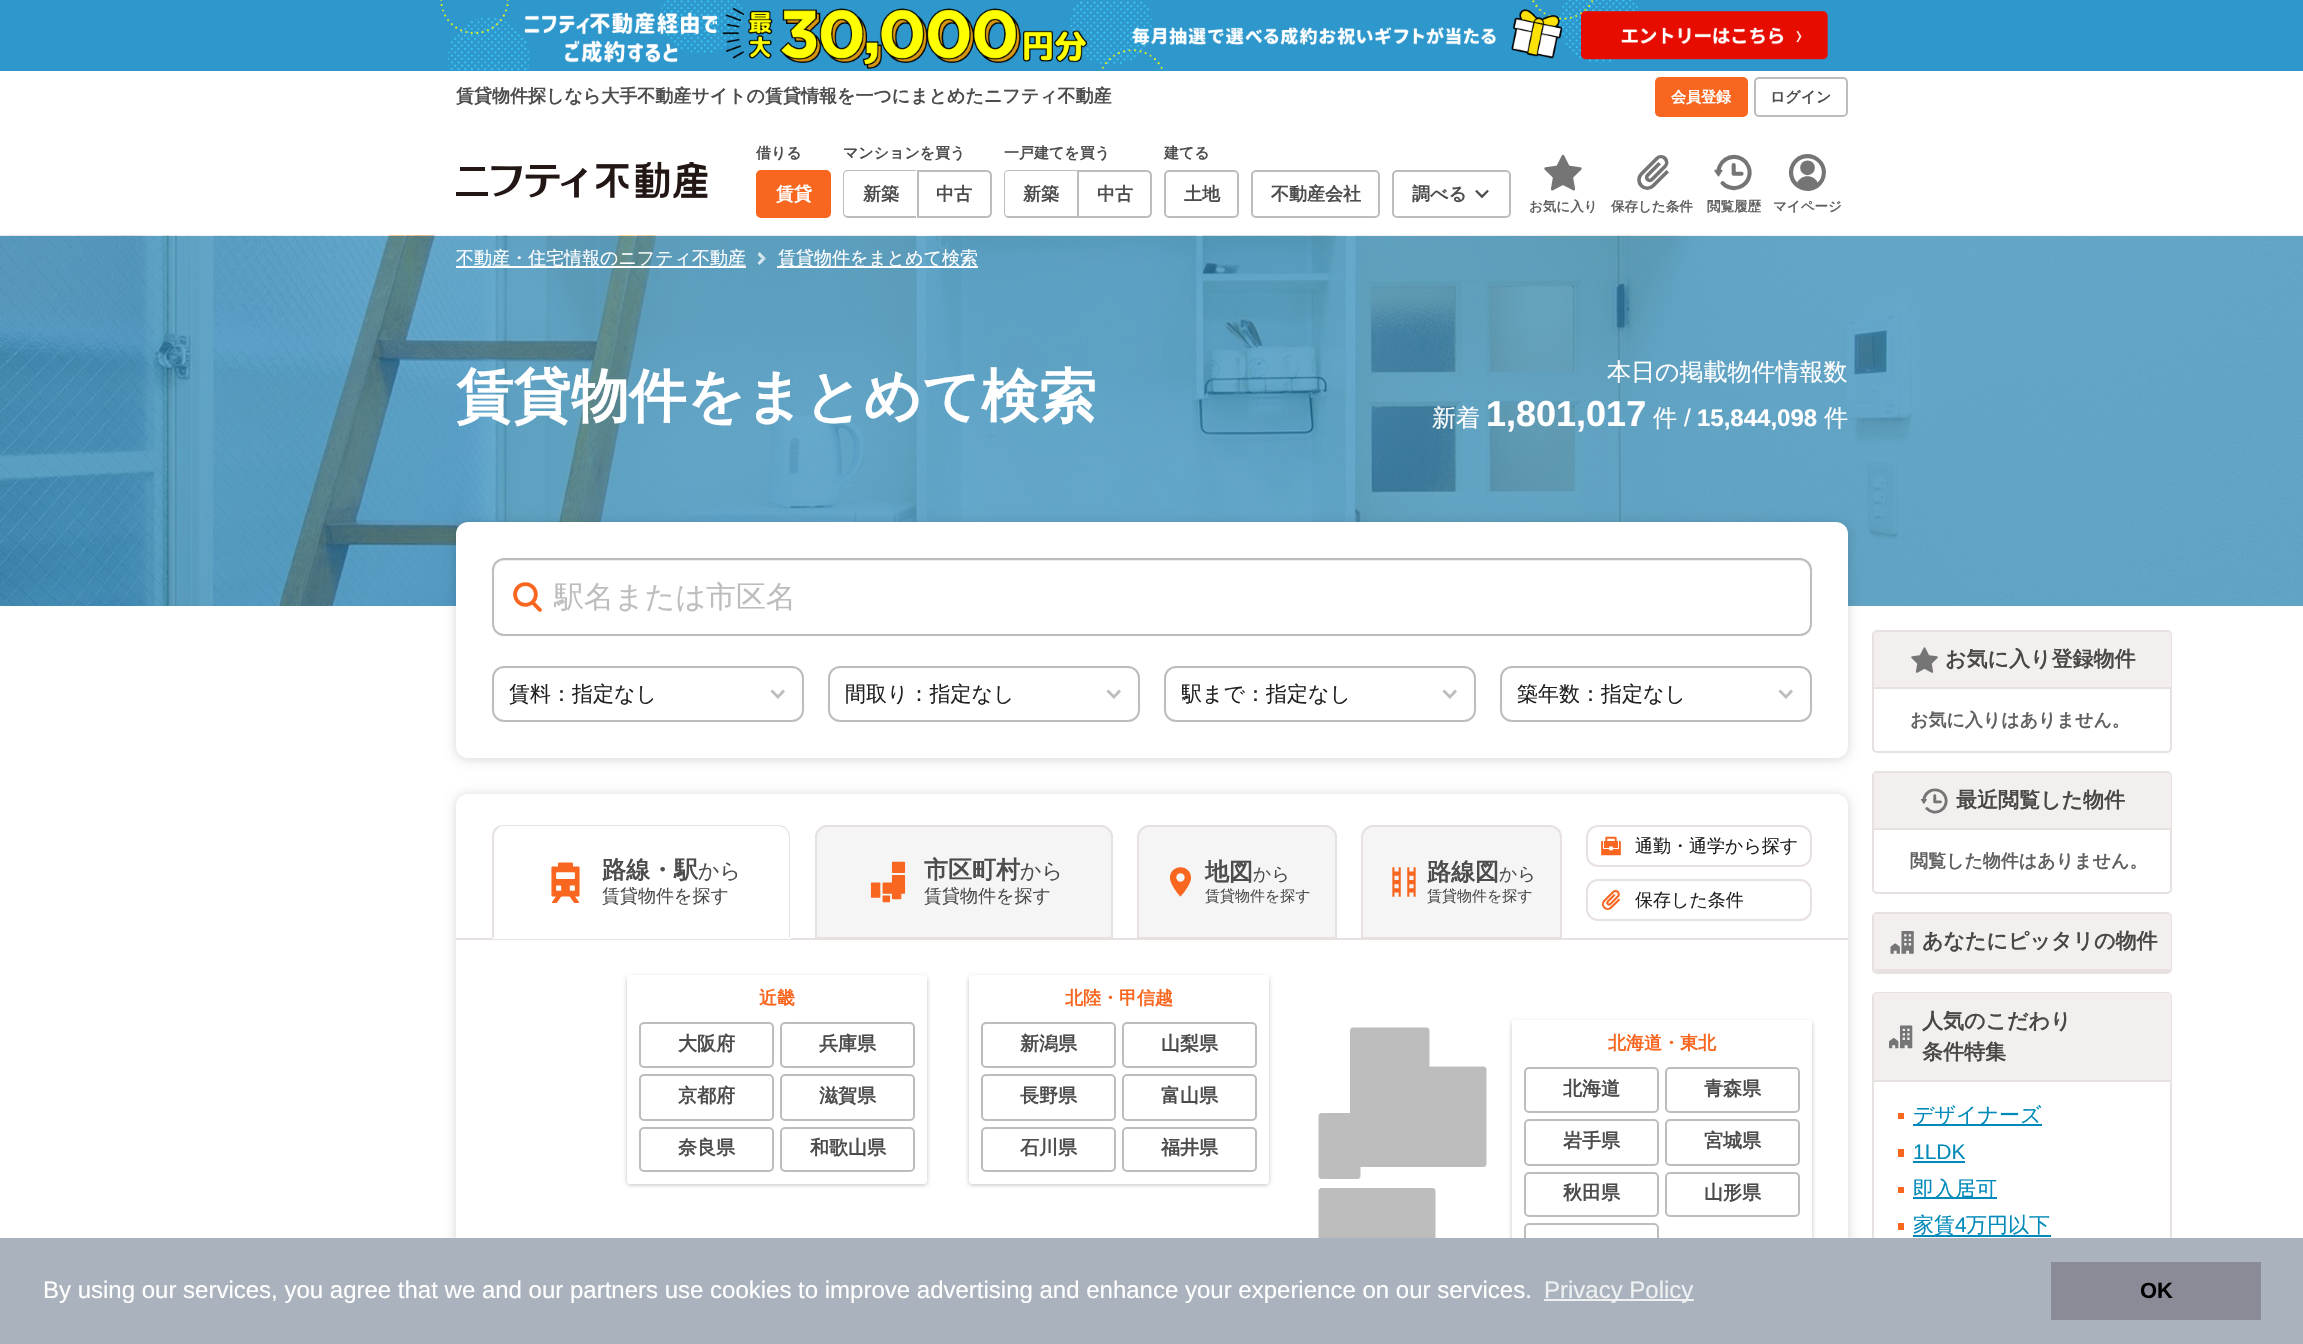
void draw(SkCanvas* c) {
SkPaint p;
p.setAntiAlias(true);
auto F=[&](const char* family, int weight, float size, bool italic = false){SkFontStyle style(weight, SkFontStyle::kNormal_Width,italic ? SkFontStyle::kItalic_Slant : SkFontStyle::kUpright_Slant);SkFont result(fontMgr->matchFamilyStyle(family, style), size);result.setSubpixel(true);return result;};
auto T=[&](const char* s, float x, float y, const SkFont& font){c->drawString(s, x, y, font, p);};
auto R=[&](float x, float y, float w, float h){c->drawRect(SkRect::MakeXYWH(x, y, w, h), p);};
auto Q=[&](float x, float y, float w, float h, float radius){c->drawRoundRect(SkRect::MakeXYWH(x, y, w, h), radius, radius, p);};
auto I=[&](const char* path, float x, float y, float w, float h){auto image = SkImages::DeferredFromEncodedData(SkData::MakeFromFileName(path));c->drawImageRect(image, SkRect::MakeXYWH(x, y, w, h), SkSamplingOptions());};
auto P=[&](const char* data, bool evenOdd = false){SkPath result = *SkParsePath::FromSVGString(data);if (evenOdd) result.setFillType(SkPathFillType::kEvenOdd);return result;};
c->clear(0xffffffff);
p.setColor(0xff2e98cd);
R(0,0,2303,71);
I("1.png",440,0,1388,71);
auto f1 = F("WenQuanYi Zen Hei",700,18);
p.setColor(0xff4d4d4d);
T("賃貸物件探しなら大手不動産サイトの賃貸情報を一つにまとめたニフティ不動産",456,102,f1);
p.setColor(0xfff8661f);
Q(1655,77,93,40,5);
auto f2 = F("WenQuanYi Zen Hei",700,15);
p.setColor(0xffffffff);
T("会員登録",1671,102,f2);
p.setStroke(true);
p.setStrokeWidth(2);
p.setColor(0xffbdbdbd);
c->drawRoundRect(SkRect::MakeXYWH(1755,78,92,38),4,4,p);
p.setStroke(false);
p.setColor(0xff4d4d4d);
T("ログイン",1770,102,f2);
I("2.png",456,161,252,38);
T("借りる",756,158,f2);
p.setColor(0xfff8661f);
c->drawRoundRect(SkRect::MakeXYWH(757,171,73,46),4,4,p);
p.setStroke(true);
c->drawRoundRect(SkRect::MakeXYWH(757,171,73,46),4,4,p);
p.setStroke(false);
p.setColor(0xffffffff);
T("賃貸",776,200,f1);
p.setColor(0xff4d4d4d);
T("マンションを買う",843,158,f2);
p.setColor(0xffbdbdbd);
c->drawPath(P("M848 170h68v48h-68c-3 0-5-3-5-5v-39c0-2 2-4 5-4zm0 1h68v45h-68c-2 0-4-1-4-3v-39c0-2 2-3 4-3z",true),p);
p.setColor(0xff4d4d4d);
T("新築",863,200,f1);
p.setStroke(true);
p.setColor(0xffbdbdbd);
c->drawPath(P("M918 171h69c2 0 4 2 4 4v38c0 2-2 4-4 4h-69z"),p);
p.setStroke(false);
p.setColor(0xff4d4d4d);
T("中古",936,200,f1);
T("一戸建てを買う",1004,158,f2);
p.setColor(0xffbdbdbd);
c->drawPath(P("M1008 170h69v48h-69c-2 0-4-3-4-5v-39c0-2 2-4 4-4zm0 1h69v45h-69c-2 0-3-1-3-3v-39c0-2 1-3 3-3z",true),p);
p.setColor(0xff4d4d4d);
T("新築",1023,200,f1);
p.setStroke(true);
p.setColor(0xffbdbdbd);
c->drawPath(P("M1078 171h69c2 0 4 2 4 4v38c0 2-2 4-4 4h-69z"),p);
p.setStroke(false);
p.setColor(0xff4d4d4d);
T("中古",1097,200,f1);
T("建てる",1164,158,f2);
p.setStroke(true);
p.setColor(0xffbdbdbd);
c->drawRoundRect(SkRect::MakeXYWH(1165,171,73,46),4,4,p);
p.setStroke(false);
p.setColor(0xff4d4d4d);
T("土地",1184,200,f1);
p.setStroke(true);
p.setColor(0xffbdbdbd);
c->drawRoundRect(SkRect::MakeXYWH(1252,171,127,46),4,4,p);
p.setStroke(false);
p.setColor(0xff4d4d4d);
T("不動産会社",1271,200,f1);
p.setStroke(true);
p.setColor(0xffbdbdbd);
c->drawRoundRect(SkRect::MakeXYWH(1393,171,117,46),4,4,p);
p.setStroke(false);
p.setColor(0xff4d4d4d);
T("調べる",1412,200,f1);
I("3.png",1475,190,14,8);
I("4.png",1544,154,38,37);
auto f3 = F("WenQuanYi Zen Hei",700,13.5);
p.setColor(0xff616161);
T("お気に入り",1529,211,f3);
I("5.png",1637,155,32,35);
T("保存した条件",1611,211,f3);
I("6.png",1714,154,38,37);
T("閲覧履歴",1707,211,f3);
I("7.png",1788,154,38,37);
T("マイページ",1773,211,f3);
I("8.png",0,235,2303,371);
p.setColor(0xffffffff);
R(456,266,290,2);
auto f4 = F("WenQuanYi Zen Hei",500,18);
T("不動産・住宅情報のニフティ不動産",456,264,f4);
p.setColor(0xffd6e7ef);
c->drawPath(P("M759.5 252l6.5 6.5h-4.5l-4-4z"),p);
c->drawPath(P("M766 258.5l-6.5 6.5l-2-2l4-4.5z"),p);
p.setColor(0xffffffff);
R(777,266,201,2);
T("賃貸物件をまとめて検索",778,264,f4);
auto f5 = F("WenQuanYi Zen Hei",700,57.6);
T("賃貸物件をまとめて検索",456,416,f5);
auto f6 = F("WenQuanYi Zen Hei",500,24);
T("本日の掲載物件情報数",1607,380,f6);
T("新着",1432,426,f6);
auto f7 = F("Liberation Sans",700,36);
T("1,801,017",1486,426,f7);
T("件",1653,426,f6);
auto f8 = F("Liberation Sans",400,24);
T("/",1684,426,f8);
auto f9 = F("Liberation Sans",700,24);
T("15,844,098",1697,426,f9);
T("件",1824,426,f6);
p.setColor(0x29000000);
p.setMaskFilter(SkMaskFilter::MakeBlur(kNormal_SkBlurStyle, 6));
c->drawRoundRect(SkRect::MakeXYWH(456,524,1392,235),12,12,p);
p.setMaskFilter(nullptr);
p.setColor(0xffffffff);
Q(456,522,1392,236,12);
p.setColor(0xffececec);
c->drawPath(P("M504 561h1296c6 0 10 5 10 11v54l-1 4c1-1 2-4 2-6v-53c0-6-5-11-11-11h-1295c-6 0-11 5-11 11v1c0-6 4-11 10-11z"),p);
p.setStroke(true);
p.setColor(0xffbdbdbd);
c->drawRoundRect(SkRect::MakeXYWH(493,559,1318,76),11,11,p);
I("9.png",513,582,29,30);
c->save();
c->clipRect(SkRect::MakeXYWH(554,578,1234,40));
auto f10 = F("WenQuanYi Zen Hei",500,30);
p.setStroke(false);
T("駅名または市区名",554,607,f10);
c->restore();
p.setStroke(true);
c->drawRoundRect(SkRect::MakeXYWH(493,667,310,54),11,11,p);
auto f11 = F("WenQuanYi Zen Hei",500,21);
p.setStroke(false);
p.setColor(0xff212121);
T("賃料：指定なし",509,701,f11);
p.setColor(0xffbdbdbd);
c->drawPath(P("M785 691.5l-7 7.5v-4l5-5.5zm-7 7.5l-7.5-7.5l2-2l5.5 5.5z"),p);
p.setStroke(true);
c->drawRoundRect(SkRect::MakeXYWH(829,667,310,54),11,11,p);
p.setStroke(false);
p.setColor(0xff212121);
T("間取り：指定なし",845,701,f11);
p.setColor(0xffbdbdbd);
c->drawPath(P("M1121 691.5l-7 7.5v-4l5-5.5zm-7 7.5l-7.5-7.5l2-2l5.5 5.5z"),p);
p.setStroke(true);
c->drawRoundRect(SkRect::MakeXYWH(1165,667,310,54),11,11,p);
c->save();
c->clipRect(SkRect::MakeXYWH(1182,678,240,32));
p.setStroke(false);
p.setColor(0xff212121);
T("駅まで：指定なし",1181,701,f11);
c->restore();
p.setColor(0xffbdbdbd);
c->drawPath(P("M1457 691.5l-7 7.5v-4l5-5.5zm-7 7.5l-7.5-7.5l2-2l5.5 5.5z"),p);
p.setStroke(true);
c->drawRoundRect(SkRect::MakeXYWH(1501,667,310,54),11,11,p);
p.setStroke(false);
p.setColor(0xff212121);
T("築年数：指定なし",1517,701,f11);
p.setColor(0xffbdbdbd);
c->drawPath(P("M1793 691.5l-7 7.5v-4l5-5.5zm-7 7.5l-7.5-7.5l2-2l5.5 5.5z"),p);
p.setColor(0x29000000);
p.setMaskFilter(SkMaskFilter::MakeBlur(kNormal_SkBlurStyle, 6));
c->drawRoundRect(SkRect::MakeXYWH(456,795,1392,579),12,12,p);
p.setMaskFilter(nullptr);
p.setColor(0xffffffff);
Q(456,794,1392,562,12);
p.setColor(0xffe7e1e0);
R(456,938,1392,2);
p.setColor(0xffffffff);
c->drawPath(P("M504 825h275c6.5 0 12 5.5 12 12v102h-299v-102c0-6.5 5.5-12 12-12z"),p);
p.setColor(0xffe7e1e0);
c->drawPath(P("M504 825c-4 0-6 1-9 3l2 2c1-3 4-4 7-4h274c3 0 6 1 8 4l1-1c-2-3-5-4-9-4z"),p);
c->drawPath(P("M787 829c2 2 3 5 3 8v101h-1v-101c0-3-1-6-3-7z"),p);
c->drawPath(P("M492 939l2-2v-100c0-3 1-6 3-7l-2-2c-2 2-3 6-3 9z"),p);
I("10.png",551,862,29,41);
auto f12 = F("WenQuanYi Zen Hei",700,24);
p.setColor(0xff4d4d4d);
T("路線・駅",602,878,f12);
T("から",698,878,f11);
T("賃貸物件を探す",602,902,f4);
p.setColor(0xfff5f5f5);
c->drawPath(P("M827 826h274c6 0 11 5 11 11v101h-296v-101c0-6 5-11 11-11z"),p);
p.setStroke(true);
p.setColor(0xffe7e1e0);
c->drawPath(P("M827 826h274c6 0 11 5 11 11v101h-296v-101c0-6 5-11 11-11z"),p);
I("11.png",870,861,36,42);
p.setStroke(false);
p.setColor(0xff4d4d4d);
T("市区町村",924,878,f12);
T("から",1020,878,f11);
T("賃貸物件を探す",924,902,f4);
p.setColor(0xfff5f5f5);
c->drawPath(P("M1149 826h176c6 0 11 5 11 11v101h-198v-101c0-6 5-11 11-11z"),p);
p.setStroke(true);
p.setColor(0xffe7e1e0);
c->drawPath(P("M1149 826h176c6 0 11 5 11 11v101h-198v-101c0-6 5-11 11-11z"),p);
I("12.png",1170,867,21,30);
p.setStroke(false);
p.setColor(0xff4d4d4d);
T("地図",1205,880,f12);
T("から",1253,880,f4);
auto f13 = F("WenQuanYi Zen Hei",500,15);
T("賃貸物件を探す",1205,901,f13);
p.setColor(0xfff5f5f5);
c->drawPath(P("M1373 826h177c6 0 11 5 11 11v101h-199v-101c0-6 5-11 11-11z"),p);
p.setStroke(true);
p.setColor(0xffe7e1e0);
c->drawPath(P("M1373 826h177c6 0 11 5 11 11v101h-199v-101c0-6 5-11 11-11z"),p);
I("13.png",1392,867,24,30);
p.setStroke(false);
p.setColor(0xff4d4d4d);
T("路線図",1427,880,f12);
T("から",1499,880,f4);
T("賃貸物件を探す",1427,901,f13);
p.setStroke(true);
p.setColor(0xffe7e1e0);
c->drawRoundRect(SkRect::MakeXYWH(1587,826,224,40),11,11,p);
I("14.png",1601,836,20,20);
p.setStroke(false);
p.setColor(0xff212121);
T("通勤・通学から探す",1635,852,f4);
p.setStroke(true);
p.setColor(0xffe7e1e0);
c->drawRoundRect(SkRect::MakeXYWH(1587,880,224,40),11,11,p);
I("15.png",1601,890,19,20);
p.setStroke(false);
p.setColor(0xff212121);
T("保存した条件",1635,906,f4);
p.setColor(0x3d000000);
p.setMaskFilter(SkMaskFilter::MakeBlur(kNormal_SkBlurStyle, 2));
c->drawRoundRect(SkRect::MakeXYWH(627,977,300,208),3,3,p);
p.setMaskFilter(nullptr);
p.setColor(0xffffffff);
Q(627,975,300,209,3);
p.setColor(0xfff8661f);
T("近畿",759,1004,f1);
p.setStroke(true);
p.setColor(0xffbdbdbd);
c->drawRoundRect(SkRect::MakeXYWH(640,1023,133,44),4,4,p);
auto f14 = F("WenQuanYi Zen Hei",700,19);
p.setStroke(false);
p.setColor(0xff4d4d4d);
T("大阪府",678,1050,f14);
p.setStroke(true);
p.setColor(0xffbdbdbd);
c->drawRoundRect(SkRect::MakeXYWH(781,1023,133,44),4,4,p);
p.setStroke(false);
p.setColor(0xff4d4d4d);
T("兵庫県",819,1050,f14);
p.setStroke(true);
p.setColor(0xffbdbdbd);
c->drawRoundRect(SkRect::MakeXYWH(640,1075,133,45),4,4,p);
p.setStroke(false);
p.setColor(0xff4d4d4d);
T("京都府",678,1102,f14);
p.setStroke(true);
p.setColor(0xffbdbdbd);
c->drawRoundRect(SkRect::MakeXYWH(781,1075,133,45),4,4,p);
p.setStroke(false);
p.setColor(0xff4d4d4d);
T("滋賀県",819,1102,f14);
p.setStroke(true);
p.setColor(0xffbdbdbd);
c->drawRoundRect(SkRect::MakeXYWH(640,1128,133,43),4,4,p);
p.setStroke(false);
p.setColor(0xff4d4d4d);
T("奈良県",678,1154,f14);
p.setStroke(true);
p.setColor(0xffbdbdbd);
c->drawRoundRect(SkRect::MakeXYWH(781,1128,133,43),4,4,p);
p.setStroke(false);
p.setColor(0xff4d4d4d);
T("和歌山県",810,1154,f14);
p.setColor(0x3d000000);
p.setMaskFilter(SkMaskFilter::MakeBlur(kNormal_SkBlurStyle, 2));
c->drawRoundRect(SkRect::MakeXYWH(969,977,300,208),3,3,p);
p.setMaskFilter(nullptr);
p.setColor(0xffffffff);
Q(969,975,300,209,3);
p.setColor(0xfff8661f);
T("北陸・甲信越",1065,1004,f1);
p.setStroke(true);
p.setColor(0xffbdbdbd);
c->drawRoundRect(SkRect::MakeXYWH(982,1023,133,44),4,4,p);
p.setStroke(false);
p.setColor(0xff4d4d4d);
T("新潟県",1020,1050,f14);
p.setStroke(true);
p.setColor(0xffbdbdbd);
c->drawRoundRect(SkRect::MakeXYWH(1123,1023,133,44),4,4,p);
p.setStroke(false);
p.setColor(0xff4d4d4d);
T("山梨県",1161,1050,f14);
p.setStroke(true);
p.setColor(0xffbdbdbd);
c->drawRoundRect(SkRect::MakeXYWH(982,1075,133,45),4,4,p);
p.setStroke(false);
p.setColor(0xff4d4d4d);
T("長野県",1020,1102,f14);
p.setStroke(true);
p.setColor(0xffbdbdbd);
c->drawRoundRect(SkRect::MakeXYWH(1123,1075,133,45),4,4,p);
p.setStroke(false);
p.setColor(0xff4d4d4d);
T("富山県",1161,1102,f14);
p.setStroke(true);
p.setColor(0xffbdbdbd);
c->drawRoundRect(SkRect::MakeXYWH(982,1128,133,43),4,4,p);
p.setStroke(false);
p.setColor(0xff4d4d4d);
T("石川県",1020,1154,f14);
p.setStroke(true);
p.setColor(0xffbdbdbd);
c->drawRoundRect(SkRect::MakeXYWH(1123,1128,133,43),4,4,p);
p.setStroke(false);
p.setColor(0xff4d4d4d);
T("福井県",1161,1154,f14);
I("16.png",1318,1027,169,211);
p.setColor(0x3d000000);
p.setMaskFilter(SkMaskFilter::MakeBlur(kNormal_SkBlurStyle, 2));
c->drawRoundRect(SkRect::MakeXYWH(1512,1022,300,261),3,3,p);
p.setMaskFilter(nullptr);
p.setColor(0xffffffff);
Q(1512,1020,300,261,3);
p.setColor(0xfff8661f);
T("北海道・東北",1608,1049,f1);
p.setStroke(true);
p.setColor(0xffbdbdbd);
c->drawRoundRect(SkRect::MakeXYWH(1525,1068,133,44),4,4,p);
p.setStroke(false);
p.setColor(0xff4d4d4d);
T("北海道",1563,1095,f14);
p.setStroke(true);
p.setColor(0xffbdbdbd);
c->drawRoundRect(SkRect::MakeXYWH(1666,1068,133,44),4,4,p);
p.setStroke(false);
p.setColor(0xff4d4d4d);
T("青森県",1704,1095,f14);
p.setStroke(true);
p.setColor(0xffbdbdbd);
c->drawRoundRect(SkRect::MakeXYWH(1525,1120,133,45),4,4,p);
p.setStroke(false);
p.setColor(0xff4d4d4d);
T("岩手県",1563,1147,f14);
p.setStroke(true);
p.setColor(0xffbdbdbd);
c->drawRoundRect(SkRect::MakeXYWH(1666,1120,133,45),4,4,p);
p.setStroke(false);
p.setColor(0xff4d4d4d);
T("宮城県",1704,1147,f14);
p.setStroke(true);
p.setColor(0xffbdbdbd);
c->drawRoundRect(SkRect::MakeXYWH(1525,1173,133,43),4,4,p);
p.setStroke(false);
p.setColor(0xff4d4d4d);
T("秋田県",1563,1199,f14);
p.setStroke(true);
p.setColor(0xffbdbdbd);
c->drawRoundRect(SkRect::MakeXYWH(1666,1173,133,43),4,4,p);
p.setStroke(false);
p.setColor(0xff4d4d4d);
T("山形県",1704,1199,f14);
p.setStroke(true);
p.setColor(0xffbdbdbd);
c->drawRoundRect(SkRect::MakeXYWH(1525,1224,133,44),4,4,p);
p.setColor(0xffe7e1e0);
c->drawRoundRect(SkRect::MakeXYWH(1873,631,298,121),4,4,p);
p.setStroke(false);
p.setColor(0xfff2efee);
c->drawPath(P("M1877 632h291c1.5 0 3 1.5 3 3v54h-297v-54c0-1.5 1.5-3 3-3z"),p);
p.setColor(0xffe7e1e0);
R(1874,687,297,2);
I("17.png",1911,647,27,26);
auto f15 = F("WenQuanYi Zen Hei",700,21);
p.setColor(0xff494847);
T("お気に入り登録物件",1945,666,f15);
p.setColor(0xff616161);
T("お気に入りはありません。",1910,726,f1);
p.setStroke(true);
p.setColor(0xffe7e1e0);
c->drawRoundRect(SkRect::MakeXYWH(1873,772,298,121),4,4,p);
p.setStroke(false);
p.setColor(0xfff2efee);
c->drawPath(P("M1877 773h291c1.5 0 3 1.5 3 3v54h-297v-54c0-1.5 1.5-3 3-3z"),p);
p.setColor(0xffe7e1e0);
R(1874,828,297,2);
I("18.png",1920,788,28,26);
p.setColor(0xff494847);
T("最近閲覧した物件",1956,807,f15);
p.setColor(0xff616161);
T("閲覧した物件はありません。",1910,867,f1);
p.setStroke(true);
p.setColor(0xffe7e1e0);
c->drawRoundRect(SkRect::MakeXYWH(1873,913,298,60),4,4,p);
c->save();
c->clipPath(P("M1877 914h291c1.5 0 3 1.5 3 3v52c0 1.5-1.5 3-3 3h-291c-1.5 0-3-1.5-3-3v-52c0-1.5 1.5-3 3-3z"),true);
p.setStroke(false);
p.setColor(0xfff2efee);
c->drawPath(P("M1877 914h291c1.5 0 3 1.5 3 3v54h-297v-54c0-1.5 1.5-3 3-3z"),p);
p.setColor(0xffe7e1e0);
R(1874,969,297,2);
c->restore();
I("19.png",1890,931,24,23);
p.setColor(0xff494847);
T("あなたにピッタリの物件",1922,948,f15);
c->save();
c->clipPath(P("M1877 914h291c1.5 0 3 1.5 3 3v52c0 1.5-1.5 3-3 3h-291c-1.5 0-3-1.5-3-3v-52c0-1.5 1.5-3 3-3z"),true);
p.setColor(0xffe7e1e0);
R(1874,971,297,1);
c->restore();
p.setStroke(true);
c->drawRoundRect(SkRect::MakeXYWH(1873,993,298,304),4,4,p);
p.setStroke(false);
p.setColor(0xfff2efee);
c->drawPath(P("M1877 993h291c1.5 0 3 1.5 3 3v86h-297v-86c0-1.5 1.5-3 3-3z"),p);
p.setColor(0xffe7e1e0);
R(1874,1080,297,2);
I("20.png",1889,1025,24,24);
p.setColor(0xff494847);
T("人気のこだわり",1922,1028,f15);
T("条件特集",1922,1059,f15);
p.setColor(0xfff8661f);
R(1898,1113,6,6);
p.setColor(0xff0089b9);
R(1913,1124,129,2);
T("デザイナーズ",1913,1122,f11);
p.setColor(0xfff8661f);
R(1898,1149,6,8);
auto f16 = F("Liberation Sans",400,21);
p.setColor(0xff0089b9);
T("1LDK",1913,1159,f16);
R(1913,1161,52,2);
p.setColor(0xfff8661f);
R(1898,1187,6,6);
p.setColor(0xff0089b9);
R(1913,1197,84,2);
T("即入居可",1913,1196,f11);
p.setColor(0xfff8661f);
R(1898,1223,6,7);
p.setColor(0xff0089b9);
R(1913,1235,138,2);
T("家賃",1913,1232,f11);
T("4",1955,1232,f16);
T("万円以下",1966,1232,f11);
p.setColor(0xffaab2bd);
R(0,1238,2303,106);
p.setColor(0xffffffff);
T("By using our services, you agree that we and our partners use cookies to improve advertising and enhance your experience on our services.",43,1298,f8);
p.setColor(0xffeef0f2);
R(1544,1299,150,2);
T("Privacy Policy",1544,1298,f8);
p.setColor(0xff898c96);
R(2051,1262,210,58);
auto f17 = F("Liberation Sans",700,22);
p.setColor(0xff000000);
T("OK",2140,1298,f17);
}
